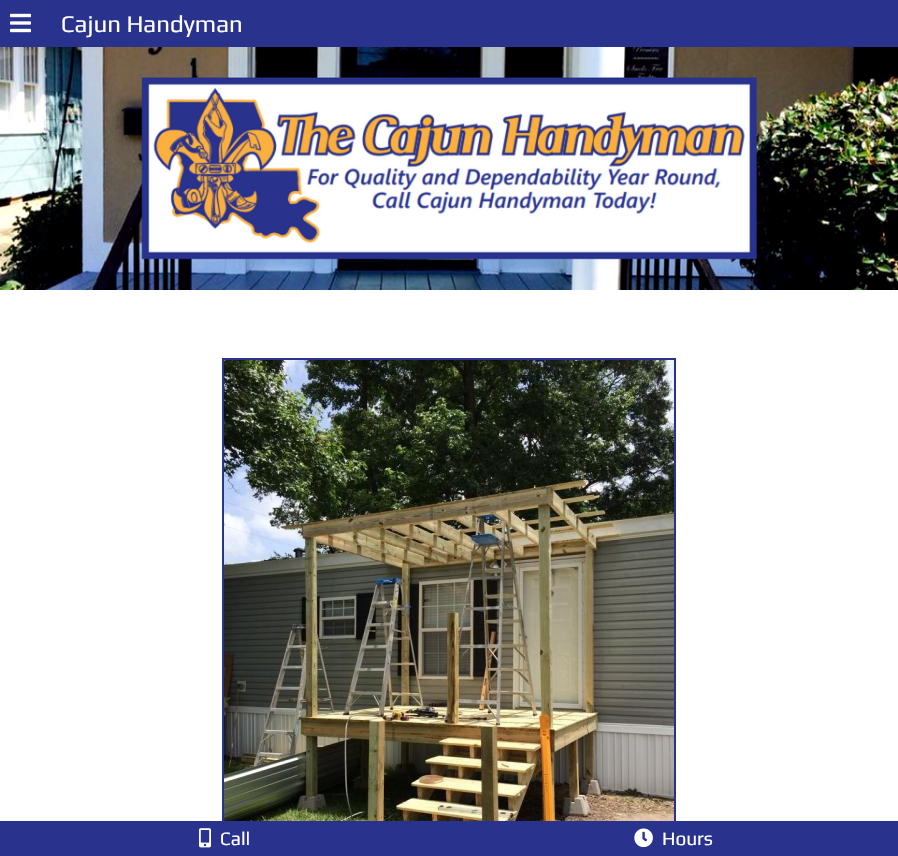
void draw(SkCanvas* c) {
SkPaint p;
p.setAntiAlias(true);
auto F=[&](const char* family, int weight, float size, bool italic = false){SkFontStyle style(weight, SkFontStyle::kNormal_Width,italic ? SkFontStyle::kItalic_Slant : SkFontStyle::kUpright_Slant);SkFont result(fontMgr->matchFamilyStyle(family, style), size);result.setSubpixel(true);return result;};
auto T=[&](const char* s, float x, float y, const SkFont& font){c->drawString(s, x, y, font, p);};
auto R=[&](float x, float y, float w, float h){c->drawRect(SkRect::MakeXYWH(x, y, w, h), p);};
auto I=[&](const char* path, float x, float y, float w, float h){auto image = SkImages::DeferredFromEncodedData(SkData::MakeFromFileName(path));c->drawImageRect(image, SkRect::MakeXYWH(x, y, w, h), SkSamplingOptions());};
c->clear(0xff29338e);
I("1.png",10,13,21,20);
auto f1 = F("Play",400,24);
p.setColor(0xffffffff);
T("Cajun Handyman",61,32,f1);
R(0,290,898,531);
I("2.png",0,47,898,243);
p.setStroke(true);
p.setStrokeWidth(2);
p.setColor(0xff29338e);
c->drawRect(SkRect::MakeXYWH(223,359,452,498),p);
I("3.png",224,360,450,461);
I("4.png",199,828,12,20);
auto f2 = F("Play",400,19);
p.setStroke(false);
p.setColor(0xffffffff);
T("Call",220,845,f2);
I("5.png",634,828,19,20);
T("Hours",662,845,f2);
}
